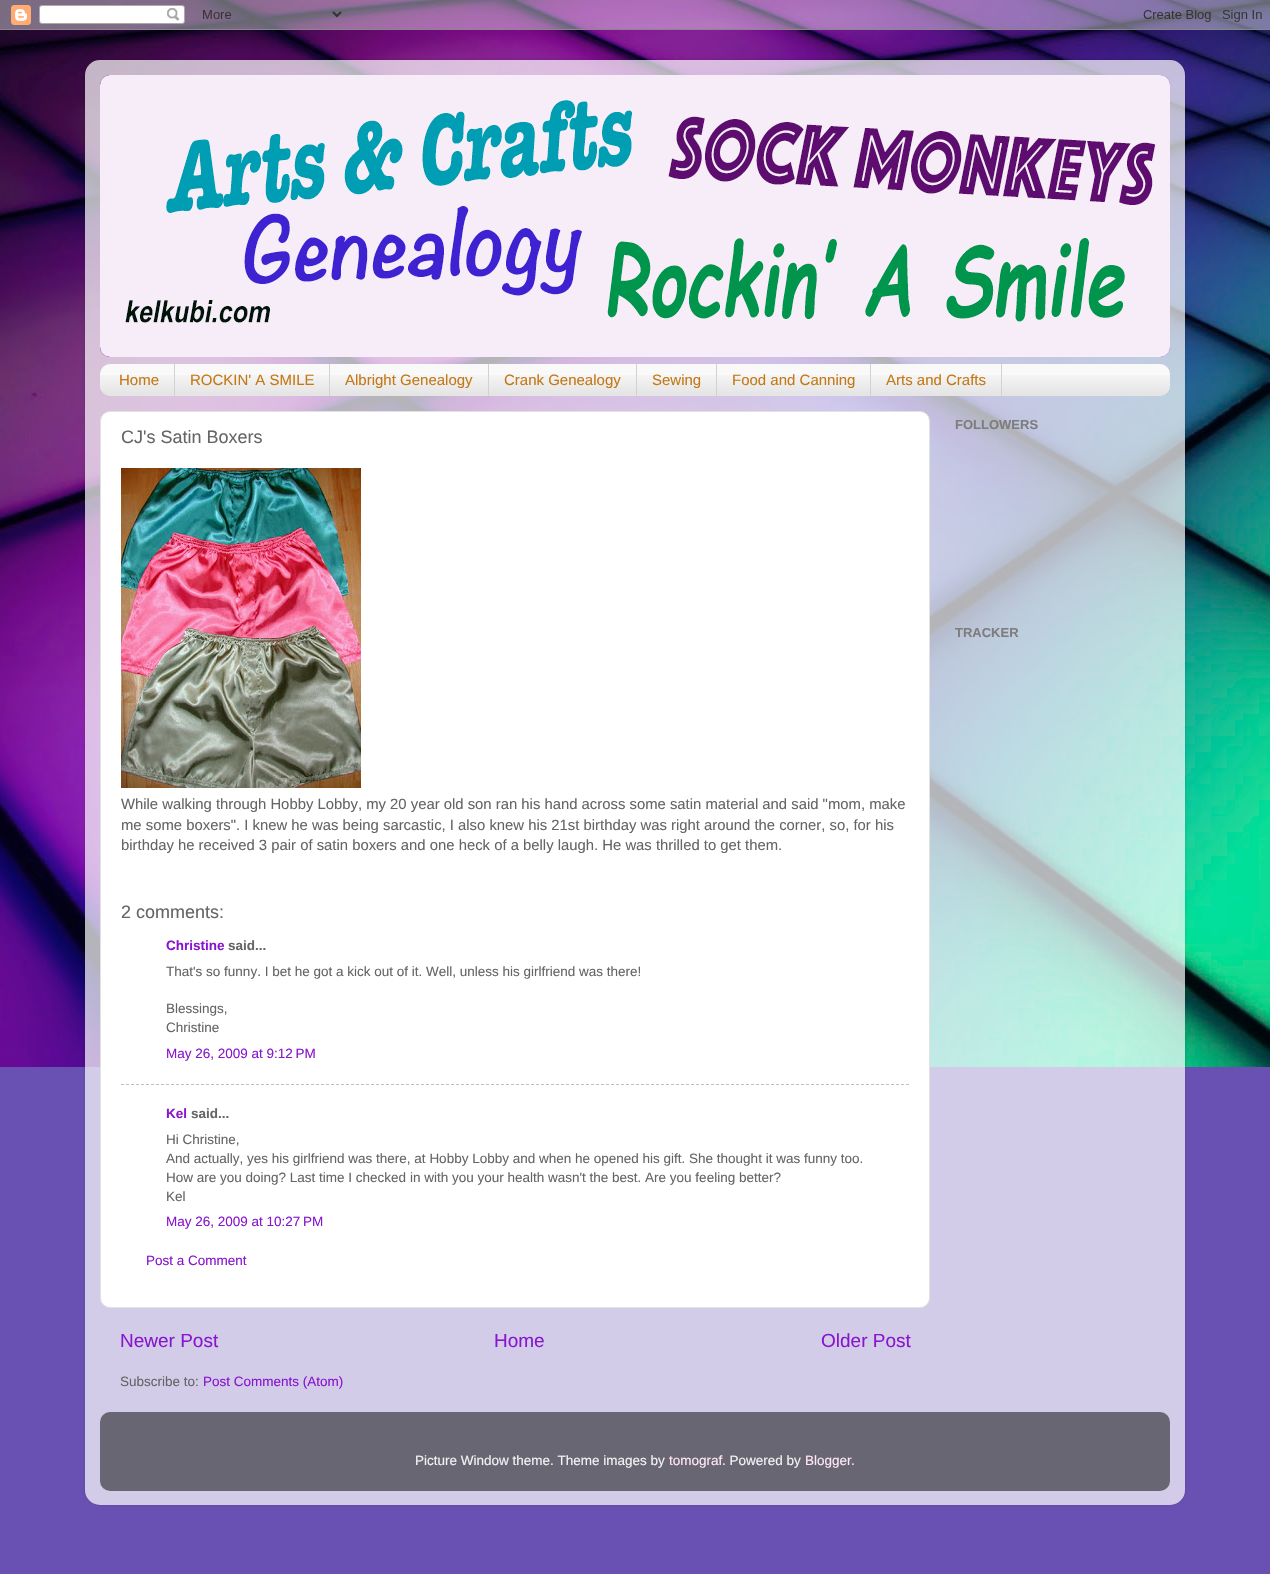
void draw(SkCanvas* c) {
SkPaint p;
p.setAntiAlias(true);
auto F=[&](const char* family, int weight, float size, bool italic = false){SkFontStyle style(weight, SkFontStyle::kNormal_Width,italic ? SkFontStyle::kItalic_Slant : SkFontStyle::kUpright_Slant);SkFont result(fontMgr->matchFamilyStyle(family, style), size);result.setSubpixel(true);return result;};
auto T=[&](const char* s, float x, float y, const SkFont& font){c->drawString(s, x, y, font, p);};
auto R=[&](float x, float y, float w, float h){c->drawRect(SkRect::MakeXYWH(x, y, w, h), p);};
auto Q=[&](float x, float y, float w, float h, float radius){c->drawRoundRect(SkRect::MakeXYWH(x, y, w, h), radius, radius, p);};
auto I=[&](const char* path, float x, float y, float w, float h){auto image = SkImages::DeferredFromEncodedData(SkData::MakeFromFileName(path));c->drawImageRect(image, SkRect::MakeXYWH(x, y, w, h), SkSamplingOptions());};
auto P=[&](const char* data, bool evenOdd = false){SkPath result = *SkParsePath::FromSVGString(data);if (evenOdd) result.setFillType(SkPathFillType::kEvenOdd);return result;};
c->clear(0xff6951b3);
I("1.png",0,0,1270,1067);
I("2.png",0,0,1270,30);
c->save();
c->clipPath(P("M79 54h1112v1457h-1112zm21 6h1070c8.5 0 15 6.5 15 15v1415c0 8.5-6.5 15-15 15h-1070c-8.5 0-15-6.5-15-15v-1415c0-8.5 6.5-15 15-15z",true),true);
p.setColor(0x26000000);
p.setMaskFilter(SkMaskFilter::MakeBlur(kNormal_SkBlurStyle, 1.5));
c->drawRoundRect(SkRect::MakeXYWH(85,60,1100,1445),15,15,p);
p.setMaskFilter(nullptr);
c->restore();
I("3.png",85,60,1100,1445);
p.setColor(0xff8816ce);
Q(100,75,1070,282,10);
I("4.png",100,75,1070,10);
I("5.png",100,75,1070,282);
p.setColor(0xfff9f9f9);
Q(100,364,1070,32,10);
I("6.png",100,375,1070,21);
p.setColor(0xffd2d2d2);
R(174,364,1,32);
auto f1 = F("Liberation Sans",400,15);
p.setColor(0xffc47915);
T("Home",119,385,f1);
p.setColor(0xffd2d2d2);
R(329,364,1,32);
p.setColor(0xffc47915);
T("ROCKIN' A SMILE",190,385,f1);
p.setColor(0xffd2d2d2);
R(488,364,1,32);
p.setColor(0xffc47915);
T("Albright Genealogy",345,385,f1);
p.setColor(0xffd2d2d2);
R(636,364,1,32);
p.setColor(0xffc47915);
T("Crank Genealogy",504,385,f1);
p.setColor(0xffd2d2d2);
R(716,364,1,32);
p.setColor(0xffc47915);
T("Sewing",652,385,f1);
p.setColor(0xffd2d2d2);
R(870,364,1,32);
p.setColor(0xffc47915);
T("Food and Canning",732,385,f1);
p.setColor(0xffd2d2d2);
R(1001,364,1,32);
p.setColor(0xffc47915);
T("Arts and Crafts",886,385,f1);
p.setColor(0xffffffff);
c->drawRoundRect(SkRect::MakeXYWH(100.5,411.5,829,896),9.5,9.5,p);
p.setStroke(true);
p.setStrokeWidth(1);
p.setColor(0xffe2e2e2);
c->drawRoundRect(SkRect::MakeXYWH(100.5,411.5,829,896),9.5,9.5,p);
auto f2 = F("Liberation Sans",400,18);
p.setStroke(false);
p.setColor(0xff656565);
T("CJ's Satin Boxers",121,443,f2);
I("7.png",121,468,240,320);
auto f3 = F("Liberation Sans",400,14.85);
T("While walking through Hobby Lobby, my 20 year old son ran his hand across some satin material and said \"mom, make",121,809,f3);
T("me some boxers\". I knew he was being sarcastic, I also knew his 21st birthday was right around the corner, so, for his",121,830,f3);
T("birthday he received 3 pair of satin boxers and one heck of a belly laugh. He was thrilled to get them.",121,850,f3);
T("2 comments:",121,918,f2);
auto f4 = F("Liberation Sans",700,13.5);
p.setColor(0xff8816ce);
T("Christine",166,950,f4);
p.setColor(0xff656565);
T("said...",228,950,f4);
auto f5 = F("Liberation Sans",400,13.5);
T("That's so funny. I bet he got a kick out of it. Well, unless his girlfriend was there!",166,976,f5);
T("Blessings,",166,1013,f5);
T("Christine",166,1032,f5);
p.setColor(0xff8816ce);
T("May 26, 2009 at 9:12 PM",166,1058,f5);
p.setStroke(true);
p.setColor(0xffc0c0c0);
p.setPathEffect(SkDashPathEffect::Make({{3,2}}, 0));
c->drawPath(P("M121 1084.5h788"),p);
p.setPathEffect(nullptr);
p.setStroke(false);
p.setColor(0xff8816ce);
T("Kel",166,1118,f4);
p.setColor(0xff656565);
T("said...",191,1118,f4);
T("Hi Christine,",166,1144,f5);
T("And actually, yes his girlfriend was there, at Hobby Lobby and when he opened his gift. She thought it was funny too.",166,1163,f5);
T("How are you doing? Last time I checked in with you your health wasn't the best. Are you feeling better?",166,1182,f5);
T("Kel",166,1201,f5);
p.setColor(0xff8816ce);
T("May 26, 2009 at 10:27 PM",166,1226,f5);
T("Post a Comment",146,1265,f5);
auto f6 = F("Liberation Sans",400,19);
T("Newer Post",120,1347,f6);
T("Home",494,1347,f6);
T("Older Post",821,1347,f6);
p.setColor(0xff656565);
T("Subscribe to:",120,1386,f5);
p.setColor(0xff8816ce);
T("Post Comments (Atom)",203,1386,f5);
auto f7 = F("Liberation Sans",700,13);
p.setColor(0xff7d7d7d);
T("FOLLOWERS",955,429,f7);
T("TRACKER",955,637,f7);
I("8.png",100,1412,1070,79);
p.setColor(0xfff3f3f3);
T("Picture Window theme. Theme images by",415,1465,f5);
p.setColor(0xffffe7f3);
T("tomograf",669,1465,f5);
p.setColor(0xfff3f3f3);
T(". Powered by",722,1465,f5);
p.setColor(0xffffe7f3);
T("Blogger",805,1465,f5);
p.setColor(0xfff3f3f3);
T(".",851,1465,f5);
}
